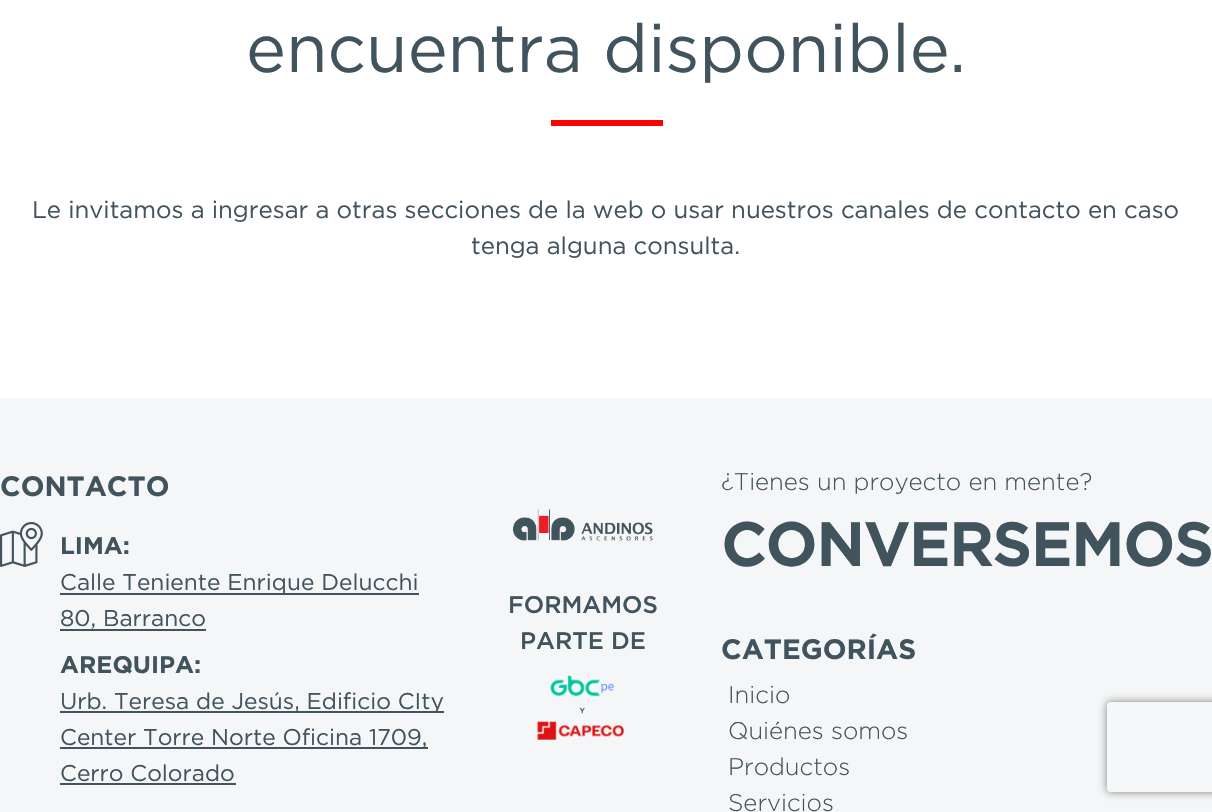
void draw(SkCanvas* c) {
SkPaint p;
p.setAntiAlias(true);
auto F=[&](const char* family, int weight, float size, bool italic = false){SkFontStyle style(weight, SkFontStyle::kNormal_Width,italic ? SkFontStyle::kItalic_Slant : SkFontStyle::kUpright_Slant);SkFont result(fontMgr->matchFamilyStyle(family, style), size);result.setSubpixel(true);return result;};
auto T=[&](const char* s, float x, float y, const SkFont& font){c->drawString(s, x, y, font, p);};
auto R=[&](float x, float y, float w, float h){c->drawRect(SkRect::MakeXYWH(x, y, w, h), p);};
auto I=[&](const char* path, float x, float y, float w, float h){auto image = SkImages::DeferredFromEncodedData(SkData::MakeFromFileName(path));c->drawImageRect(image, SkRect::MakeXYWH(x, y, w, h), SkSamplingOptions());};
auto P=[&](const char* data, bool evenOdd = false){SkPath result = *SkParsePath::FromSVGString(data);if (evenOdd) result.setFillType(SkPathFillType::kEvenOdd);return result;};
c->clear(0xffffffff);
auto f1 = F("Gotham",400,67.5);
p.setColor(0xff41535d);
T("encuentra disponible.",246,72,f1);
p.setColor(0xffff0000);
R(551,120,112,6);
auto f2 = F("Gotham",400,24);
p.setColor(0xff41535d);
T("Le invitamos a ingresar a otras secciones de la web o usar nuestros canales de contacto en caso",32,218,f2);
T("tenga alguna consulta.",471,254,f2);
p.setColor(0xfff5f6f7);
R(0,398,1212,414);
auto f3 = F("Gotham",700,28);
p.setColor(0xff41535d);
T("CONTACTO",0,496,f3);
I("1.png",0,522,43,45);
auto f4 = F("Gotham",700,24);
T("LIMA:",60,554,f4);
R(60,593,359,2);
auto f5 = F("Gotham",400,22.75);
T("Calle Teniente Enrique Delucchi",60,590,f5);
T("80, Barranco",60,626,f5);
R(60,629,146,2);
T("AREQUIPA:",60,673,f4);
R(60,711,384,2);
T("Urb. Teresa de Jesús, Edificio CIty",60,709,f5);
R(60,747,368,2);
T("Center Torre Norte Oficina 1709,",60,745,f5);
T("Cerro Colorado",60,781,f5);
R(60,783,176,2);
I("2.png",513,509,140,32);
auto f6 = F("Gotham",500,24);
T("FORMAMOS",508,613,f6);
T("PARTE DE",520,649,f6);
I("3.png",537,675,87,65);
auto f7 = F("Gotham",300,24);
T("¿Tienes un proyecto en mente?",721,490,f7);
auto f8 = F("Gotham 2",700,60);
T("CONVERSEMOS",721,566,f8);
T("CATEGORÍAS",721,659,f3);
T("Inicio",728,703,f7);
T("Quiénes somos",728,739,f7);
T("Productos",728,775,f7);
T("Servicios",728,811,f7);
c->save();
c->clipPath(P("M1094 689h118v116h-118zm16 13h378c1.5 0 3 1.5 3 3v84c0 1.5-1.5 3-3 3h-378c-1.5 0-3-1.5-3-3v-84c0-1.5 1.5-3 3-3z",true),true);
p.setColor(0xff808080);
p.setMaskFilter(SkMaskFilter::MakeBlur(kNormal_SkBlurStyle, 4));
c->drawRoundRect(SkRect::MakeXYWH(1107,702,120,90),3,3,p);
p.setMaskFilter(nullptr);
c->restore();
}
